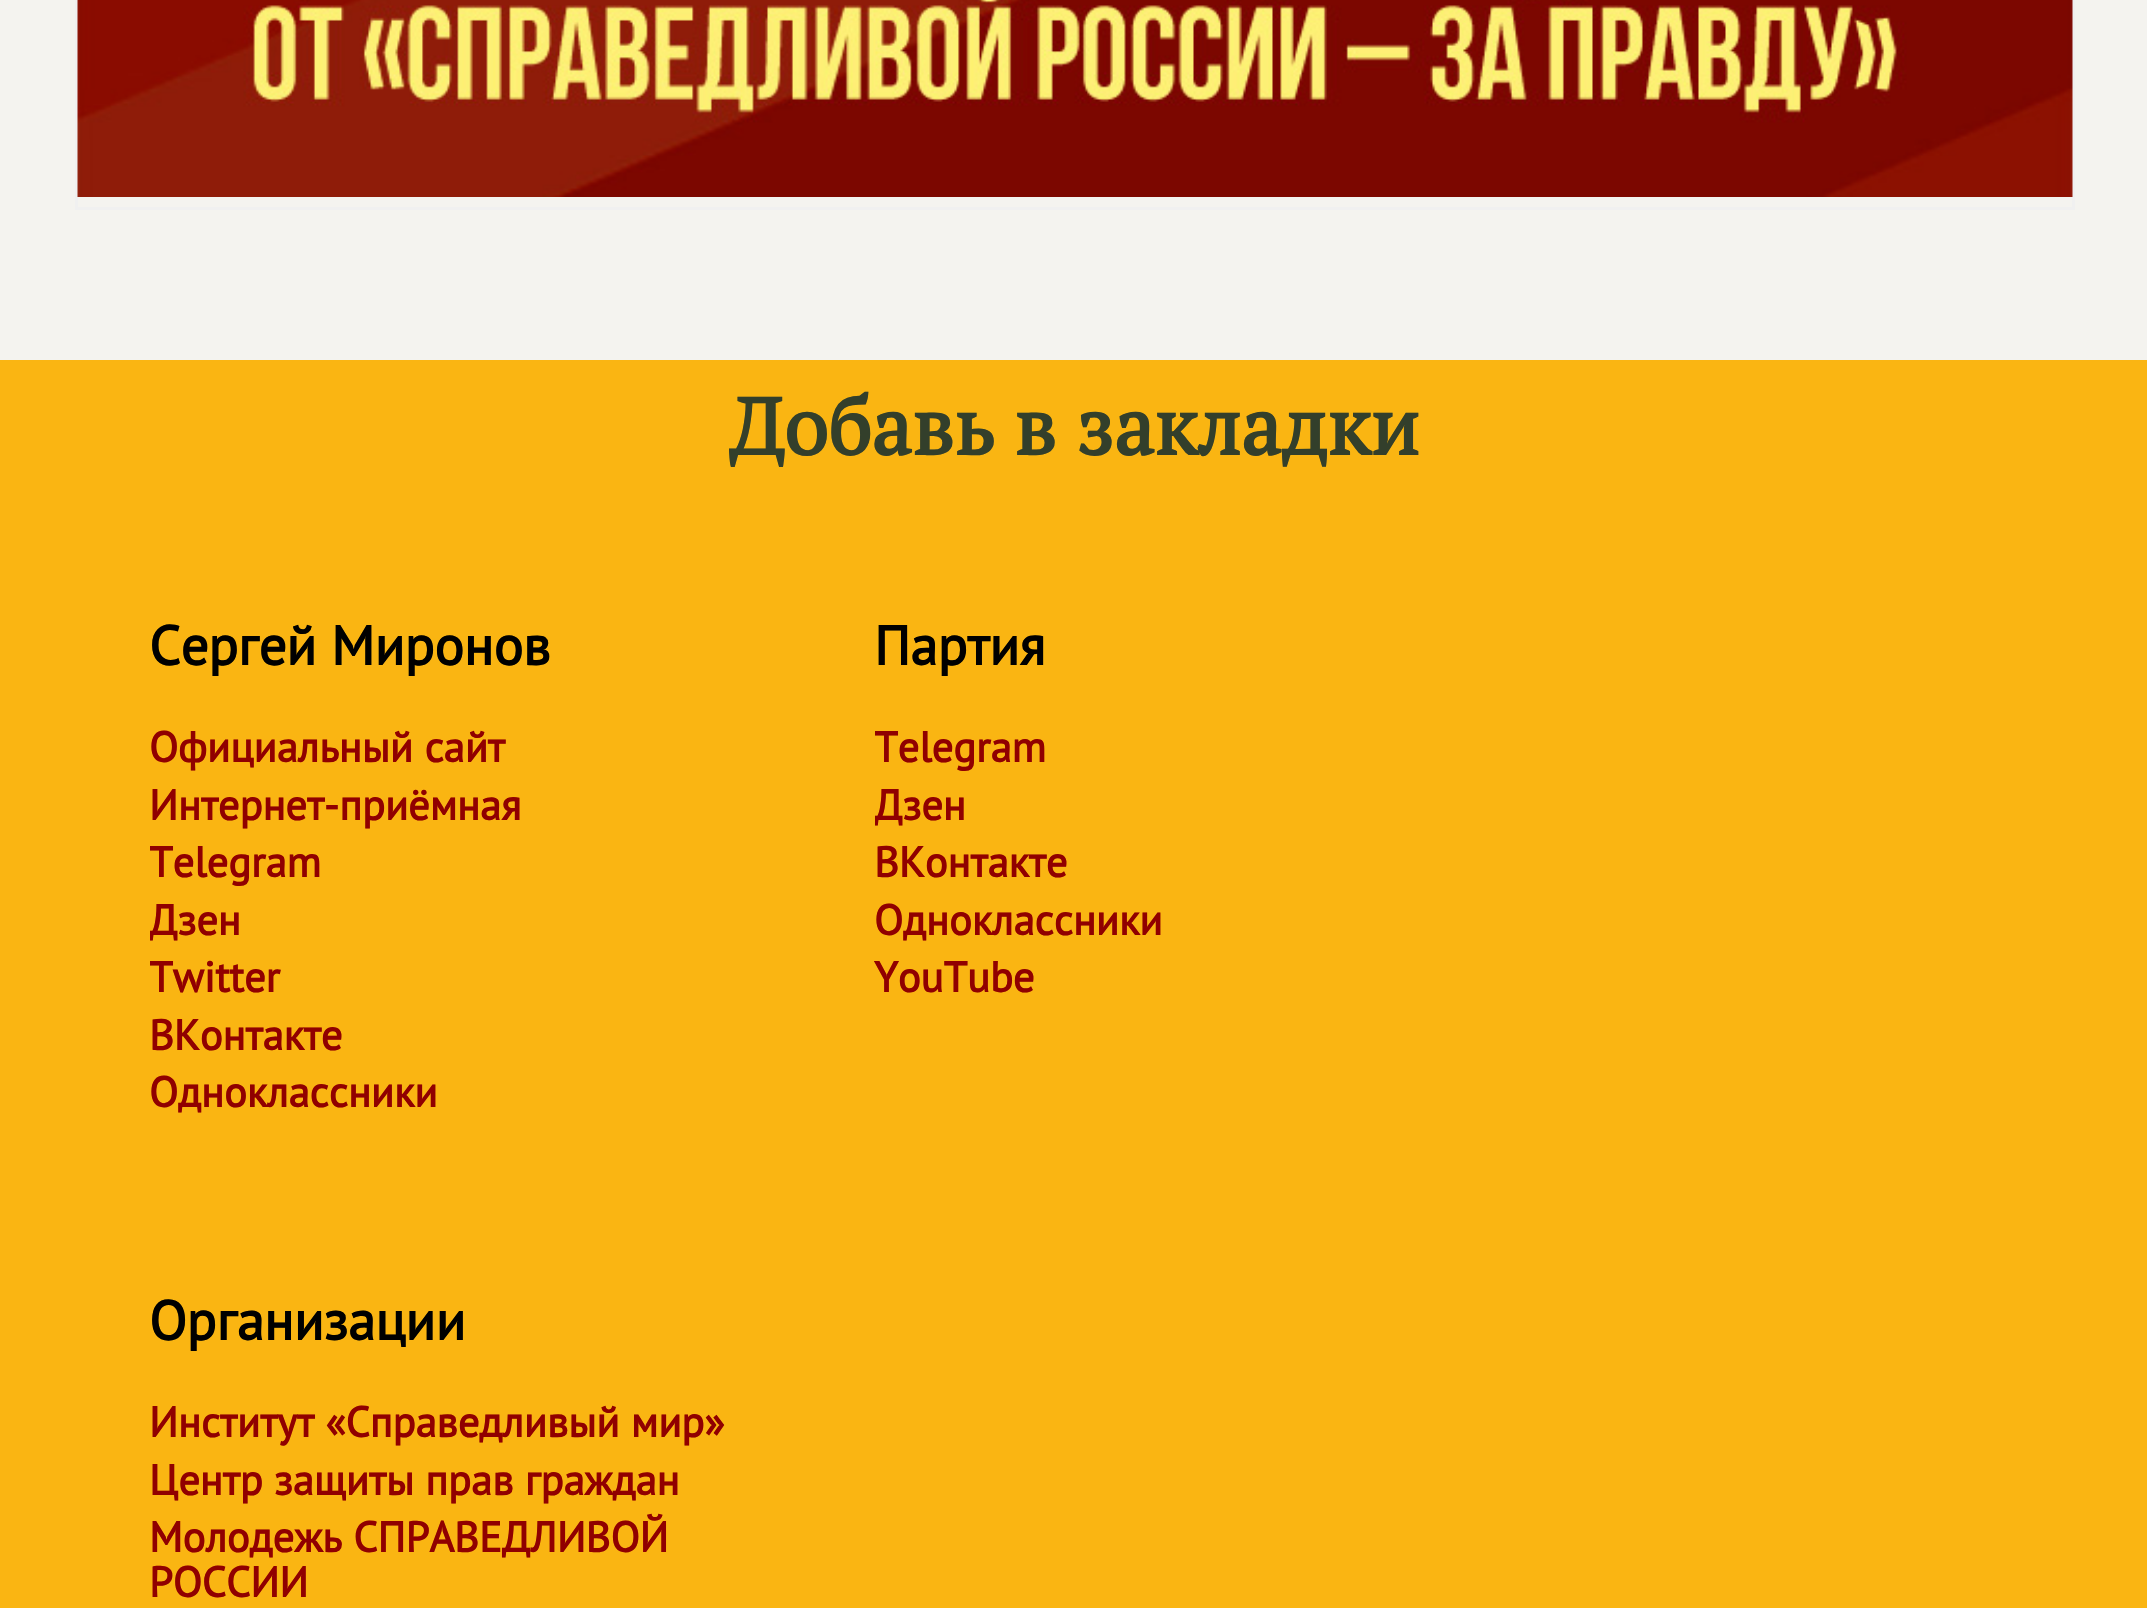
void draw(SkCanvas* c) {
SkPaint p;
p.setAntiAlias(true);
auto F=[&](const char* family, int weight, float size, bool italic = false){SkFontStyle style(weight, SkFontStyle::kNormal_Width,italic ? SkFontStyle::kItalic_Slant : SkFontStyle::kUpright_Slant);SkFont result(fontMgr->matchFamilyStyle(family, style), size);result.setSubpixel(true);return result;};
auto T=[&](const char* s, float x, float y, const SkFont& font){c->drawString(s, x, y, font, p);};
auto R=[&](float x, float y, float w, float h){c->drawRect(SkRect::MakeXYWH(x, y, w, h), p);};
auto I=[&](const char* path, float x, float y, float w, float h){auto image = SkImages::DeferredFromEncodedData(SkData::MakeFromFileName(path));c->drawImageRect(image, SkRect::MakeXYWH(x, y, w, h), SkSamplingOptions());};
c->clear(0xfff4f3ef);
p.setStroke(true);
p.setStrokeWidth(3);
p.setColor(0xfff0f0f0);
c->drawRect(SkRect::MakeXYWH(76.5,-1.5,1997,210),p);
I("1.png",77,0,1996,197);
p.setStroke(false);
p.setColor(0xfffab512);
R(0,360,2147,1248);
auto f1 = F("PT Serif",700,80);
p.setColor(0xff333f2b);
T("Добавь в закладки",729,455,f1);
auto f2 = F("PT Sans",700,55);
p.setColor(0xff000000);
T("Сергей Миронов",149,665,f2);
auto f3 = F("PT Sans",700,42.5);
p.setColor(0xff900000);
T("Официальный сайт",149,762,f3);
T("Интернет-приёмная",149,820,f3);
c->save();
c->clipRect(SkRect::MakeXYWH(150,565,625,575));
T("Telegram",149,877,f3);
T("Дзен",149,935,f3);
T("Twitter",149,992,f3);
c->restore();
T("ВКонтакте",149,1050,f3);
T("Одноклассники",149,1107,f3);
p.setColor(0xff000000);
T("Партия",874,665,f2);
c->save();
c->clipRect(SkRect::MakeXYWH(875,565,625,460));
p.setColor(0xff900000);
T("Telegram",874,762,f3);
T("Дзен",874,820,f3);
c->restore();
T("ВКонтакте",874,877,f3);
T("Одноклассники",874,935,f3);
T("YouTube",874,992,f3);
p.setColor(0xff000000);
T("Организации",149,1340,f2);
p.setColor(0xff900000);
T("Институт «Справедливый мир»",149,1437,f3);
T("Центр защиты прав граждан",149,1495,f3);
T("Молодежь СПРАВЕДЛИВОЙ",149,1552,f3);
T("РОССИИ",149,1597,f3);
}
